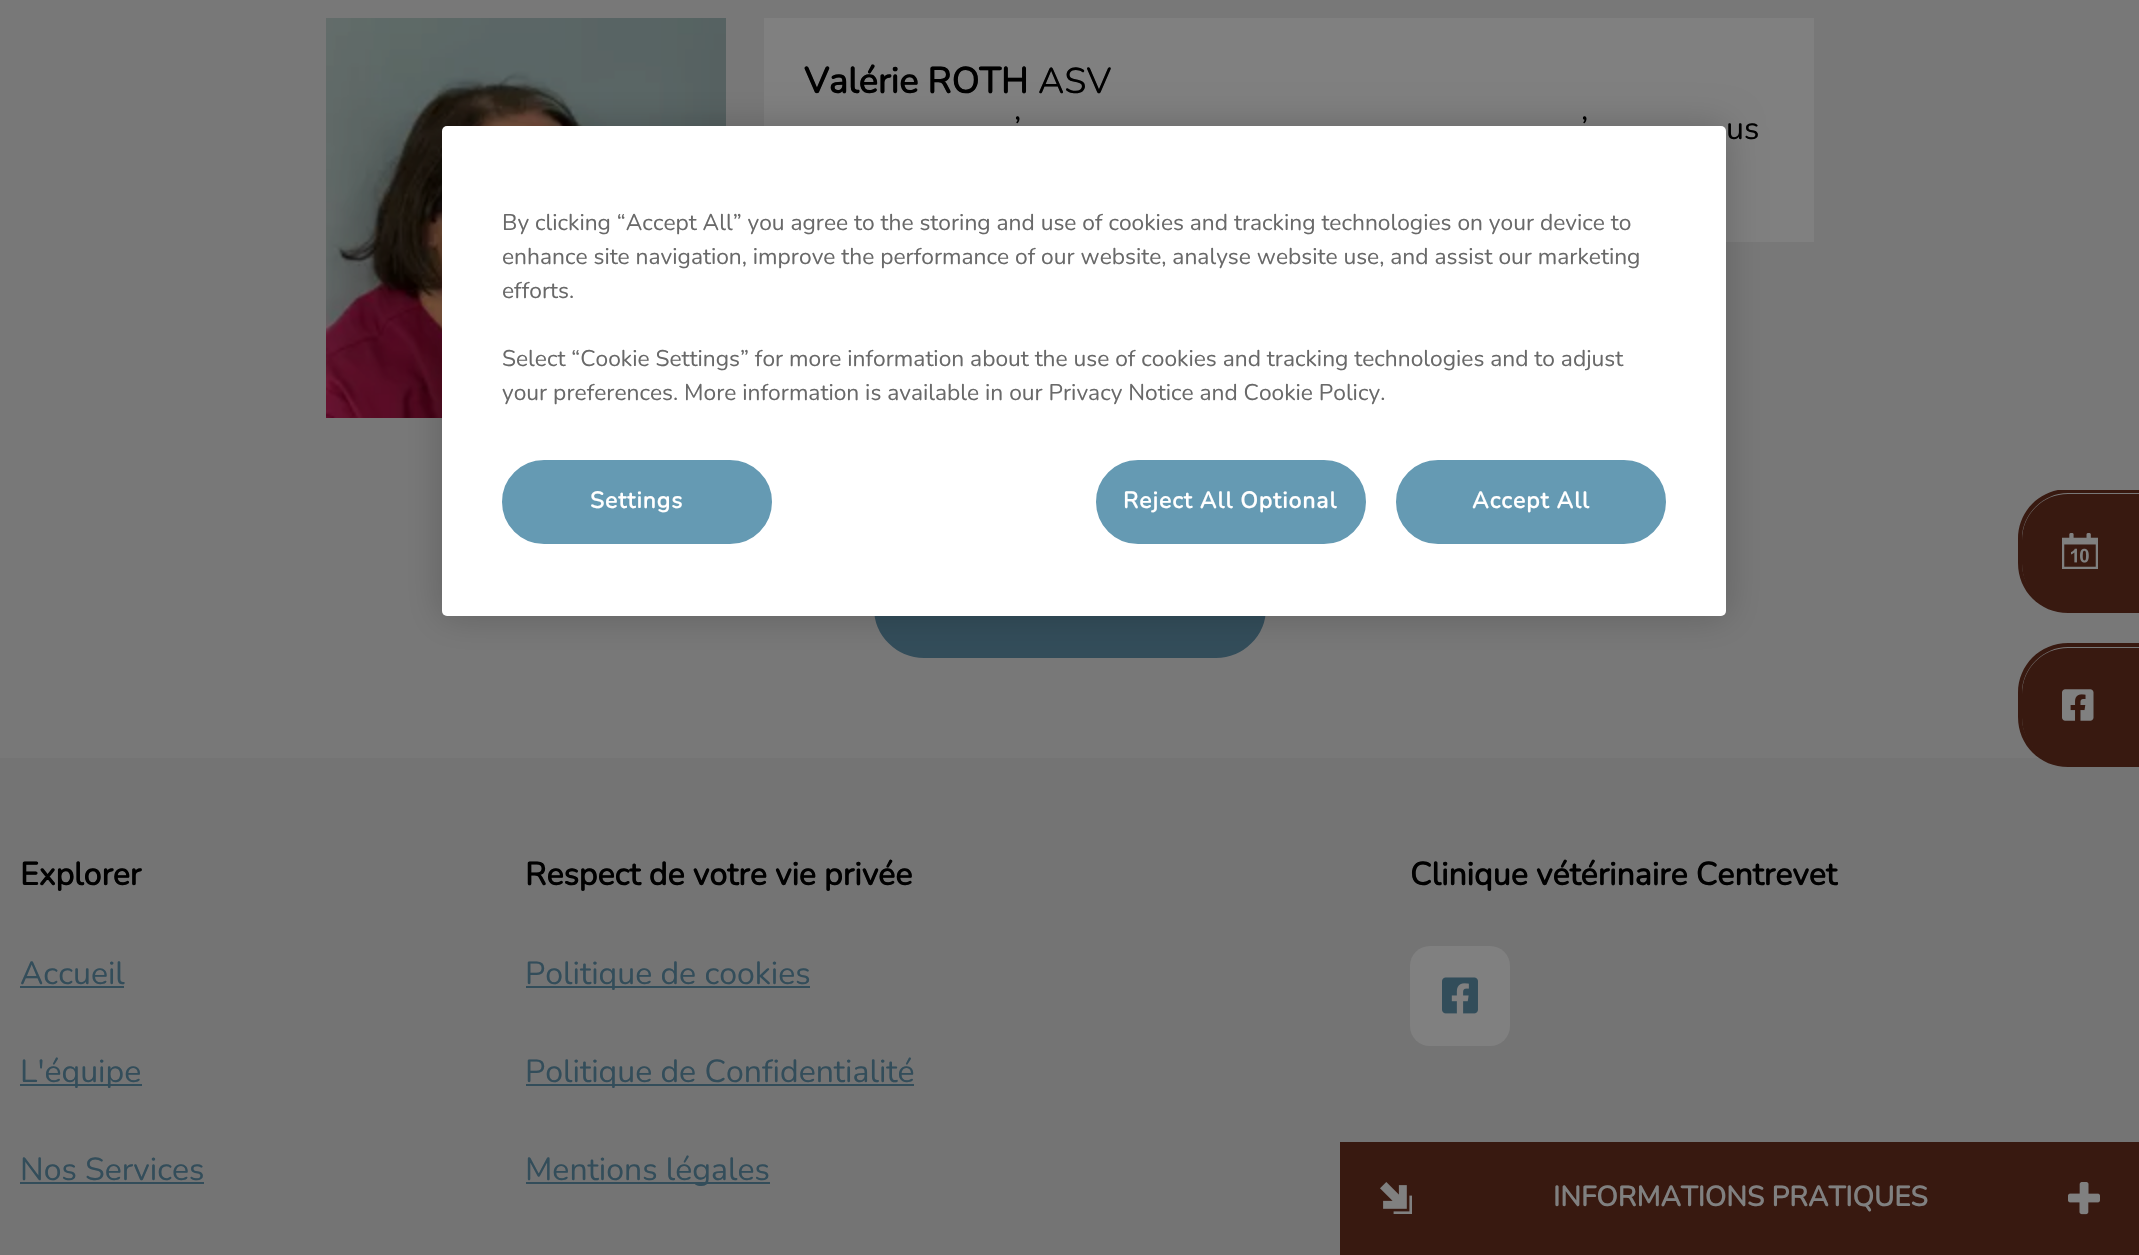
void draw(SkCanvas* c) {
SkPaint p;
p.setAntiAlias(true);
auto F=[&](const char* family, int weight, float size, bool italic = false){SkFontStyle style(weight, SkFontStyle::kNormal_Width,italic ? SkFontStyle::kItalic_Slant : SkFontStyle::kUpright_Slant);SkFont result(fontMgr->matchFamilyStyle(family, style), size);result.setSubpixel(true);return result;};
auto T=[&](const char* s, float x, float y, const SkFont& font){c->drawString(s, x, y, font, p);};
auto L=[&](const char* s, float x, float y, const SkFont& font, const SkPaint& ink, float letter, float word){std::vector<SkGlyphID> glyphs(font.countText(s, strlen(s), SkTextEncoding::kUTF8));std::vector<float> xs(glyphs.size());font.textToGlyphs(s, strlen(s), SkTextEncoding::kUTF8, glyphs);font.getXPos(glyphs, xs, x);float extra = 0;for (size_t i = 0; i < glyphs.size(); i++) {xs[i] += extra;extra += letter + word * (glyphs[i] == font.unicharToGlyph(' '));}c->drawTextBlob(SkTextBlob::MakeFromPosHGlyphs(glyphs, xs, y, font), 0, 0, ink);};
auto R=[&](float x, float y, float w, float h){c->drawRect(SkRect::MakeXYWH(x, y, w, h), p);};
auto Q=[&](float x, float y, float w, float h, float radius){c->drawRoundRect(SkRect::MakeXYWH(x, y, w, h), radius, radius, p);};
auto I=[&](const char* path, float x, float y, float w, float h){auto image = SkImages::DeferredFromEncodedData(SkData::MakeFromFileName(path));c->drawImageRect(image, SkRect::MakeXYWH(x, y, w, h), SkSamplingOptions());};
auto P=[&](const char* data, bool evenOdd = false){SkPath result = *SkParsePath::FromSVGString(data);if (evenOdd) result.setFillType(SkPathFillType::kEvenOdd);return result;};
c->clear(0xff747474);
p.setColor(0xff787878);
R(0,0,2139,758);
I("1.png",326,18,400,400);
p.setColor(0xff808080);
R(764,18,1050,224);
auto f1 = F("Nunito",700,36);
p.setColor(0xff000000);
T("Valérie ROTH",804,93,f1);
auto f2 = F("Nunito",200,36);
T("ASV",1038,93,f2);
auto f3 = F("Nunito",200,32);
T("’",1014,139,f3);
T("’",1581,139,f3);
T("us",1726,139,f3);
p.setColor(0xff334d5a);
c->drawRoundRect(SkRect::MakeXYWH(876,540,388,116),48,48,p);
p.setStroke(true);
p.setStrokeWidth(4);
c->drawRoundRect(SkRect::MakeXYWH(876,540,388,116),48,48,p);
p.setStroke(false);
p.setColor(0xff381910);
c->drawPath(P("M2068 494h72v116h-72c-25.5 0-46-20.5-46-46v-24c0-25.5 20.5-46 46-46z"),p);
c->save();
c->clipRect(SkRect::MakeXYWH(2018,490,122,278));
c->drawPath(P("M2068 489h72v124h-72c-28 0-50-22-50-50v-24c0-28 22-50 50-50zm0 4h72v116h-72c-25 0-46-21-46-46v-24c0-25 21-46 46-46z",true),p);
c->restore();
I("2.png",2062,533,36,36);
c->drawPath(P("M2068 648h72v116h-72c-25.5 0-46-20.5-46-46v-24c0-25.5 20.5-46 46-46z"),p);
c->drawPath(P("M2068 643h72v124h-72c-28 0-50-22-50-50v-24c0-28 22-50 50-50zm0 4h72v116h-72c-25 0-46-21-46-46v-24c0-25 21-46 46-46z",true),p);
I("3.png",2062,689,32,32);
auto f4 = F("Nunito",700,32);
p.setColor(0xff000000);
T("Explorer",20,885,f4);
p.setColor(0xff334d5a);
T("Accueil",20,984,f3);
R(20,986,104,2);
R(20,1084,122,2);
T("L'équipe",20,1082,f3);
T("Nos Services",20,1180,f3);
R(20,1182,184,2);
p.setColor(0xff000000);
T("Respect de votre vie privée",525,885,f4);
p.setColor(0xff334d5a);
R(526,986,284,2);
T("Politique de cookies",525,984,f3);
R(526,1084,388,2);
T("Politique de Confidentialité",525,1082,f3);
R(526,1182,244,2);
T("Mentions légales",525,1180,f3);
p.setColor(0xff000000);
T("Clinique vétérinaire Centrevet",1410,885,f4);
p.setColor(0xff808080);
Q(1410,946,100,100,20);
I("4.png",1442,977,36,37);
p.setColor(0xff381910);
R(1340,1142,799,113);
I("5.png",1380,1182,32,32);
auto f5 = F("Nunito",700,28);
p.setColor(0xff808080);
T("INFORMATIONS PRATIQUES",1553,1206,f5);
I("6.png",2068,1182,32,33);
p.setColor(0x33000000);
p.setMaskFilter(SkMaskFilter::MakeBlur(kNormal_SkBlurStyle, 18));
c->drawRoundRect(SkRect::MakeXYWH(442,126,1284,490),5,5,p);
p.setMaskFilter(nullptr);
p.setColor(0xffffffff);
Q(442,126,1284,490,5);
auto f6 = F("Nunito",200,22.75);
p.setColor(0xff696969);
T("By clicking “Accept All” you agree to the storing and use of cookies and tracking technologies on your device to",502,230,f6);
T("enhance site navigation, improve the performance of our website, analyse website use, and assist our marketing",502,264,f6);
T("efforts.",502,298,f6);
T("Select “Cookie Settings” for more information about the use of cookies and tracking technologies and to adjust",502,366,f6);
T("your preferences. More information is available in our Privacy Notice and Cookie Policy.",502,400,f6);
p.setColor(0xff659ab3);
c->drawRoundRect(SkRect::MakeXYWH(503,461,268,82),41,41,p);
p.setStroke(true);
p.setStrokeWidth(2);
c->drawRoundRect(SkRect::MakeXYWH(503,461,268,82),41,41,p);
auto f7 = F("Nunito",700,22.75);
p.setStroke(false);
p.setColor(0xffffffff);
L("Settings",590,508,f7,p,1.1,0);
p.setColor(0xff659ab3);
c->drawRoundRect(SkRect::MakeXYWH(1097,461,268,82),41,41,p);
p.setStroke(true);
c->drawRoundRect(SkRect::MakeXYWH(1097,461,268,82),41,41,p);
p.setStroke(false);
p.setColor(0xffffffff);
L("Reject All Optional",1123,508,f7,p,1.1,0);
p.setColor(0xff659ab3);
c->drawRoundRect(SkRect::MakeXYWH(1397,461,268,82),41,41,p);
p.setStroke(true);
c->drawRoundRect(SkRect::MakeXYWH(1397,461,268,82),41,41,p);
p.setStroke(false);
p.setColor(0xffffffff);
L("Accept All",1472,508,f7,p,1.1,0);
}
